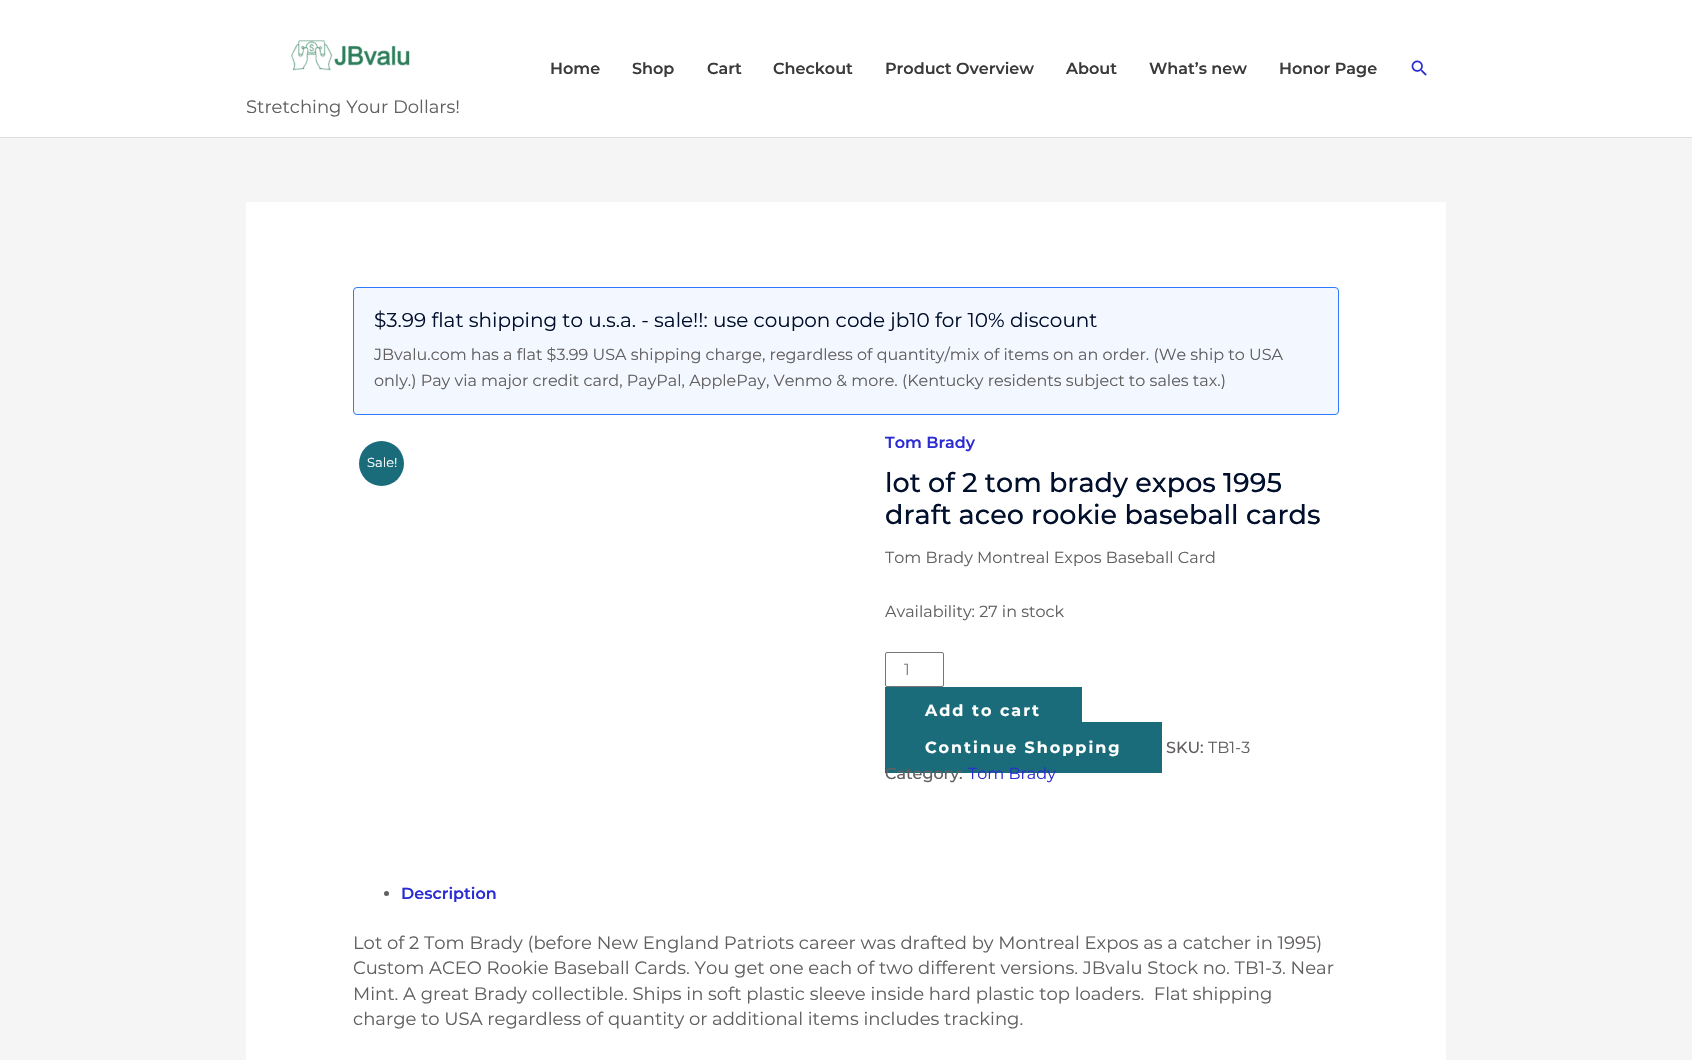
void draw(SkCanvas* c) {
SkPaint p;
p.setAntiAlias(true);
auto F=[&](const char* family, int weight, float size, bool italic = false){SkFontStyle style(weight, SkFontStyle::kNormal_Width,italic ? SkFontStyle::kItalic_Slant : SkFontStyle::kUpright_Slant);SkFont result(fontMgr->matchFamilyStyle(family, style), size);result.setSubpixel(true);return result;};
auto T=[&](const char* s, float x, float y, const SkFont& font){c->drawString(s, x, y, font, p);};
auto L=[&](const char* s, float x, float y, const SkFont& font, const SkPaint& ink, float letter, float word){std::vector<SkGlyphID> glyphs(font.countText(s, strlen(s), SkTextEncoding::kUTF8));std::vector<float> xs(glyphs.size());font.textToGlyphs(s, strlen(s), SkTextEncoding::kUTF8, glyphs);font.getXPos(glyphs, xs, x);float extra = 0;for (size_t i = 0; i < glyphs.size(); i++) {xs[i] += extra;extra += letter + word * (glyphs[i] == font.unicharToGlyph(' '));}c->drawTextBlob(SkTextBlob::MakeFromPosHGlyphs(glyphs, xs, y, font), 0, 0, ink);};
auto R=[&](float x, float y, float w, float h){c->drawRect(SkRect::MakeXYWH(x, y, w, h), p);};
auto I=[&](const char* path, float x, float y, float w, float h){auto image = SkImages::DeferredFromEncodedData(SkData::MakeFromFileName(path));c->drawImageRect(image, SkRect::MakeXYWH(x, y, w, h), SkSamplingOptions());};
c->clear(0xfff5f5f5);
p.setColor(0xffffffff);
R(0,0,1692,137);
p.setColor(0xffdddddd);
R(0,137,1692,1);
auto f1 = F("Montserrat",600,16);
p.setColor(0xff3a3a3a);
T("Home",550,74,f1);
T("Shop",632,74,f1);
T("Cart",707,74,f1);
T("Checkout",773,74,f1);
T("Product Overview",885,74,f1);
T("About",1066,74,f1);
T("What’s new",1149,74,f1);
T("Honor Page",1279,74,f1);
I("1.png",1411,60,16,16);
I("2.png",291,40,120,31);
auto f2 = F("Montserrat",400,18);
p.setColor(0xff625f5f);
T("Stretching Your Dollars!",246,113,f2);
p.setColor(0xffffffff);
R(246,202,1200,858);
p.setColor(0xfff3f7ff);
c->drawRoundRect(SkRect::MakeXYWH(353.5,287.5,985,127),3.5,3.5,p);
p.setStroke(true);
p.setStrokeWidth(1);
p.setColor(0xff2f79ff);
c->drawRoundRect(SkRect::MakeXYWH(353.5,287.5,985,127),3.5,3.5,p);
auto f3 = F("Montserrat",400,20);
p.setStroke(false);
p.setColor(0xff000f2b);
T("$3.99 flat shipping to u.s.a. - sale!!: use coupon code jb10 for 10% discount",374,327,f3);
auto f4 = F("Montserrat",400,16);
p.setColor(0xff625f5f);
T("JBvalu.com has a flat $3.99 USA shipping charge, regardless of quantity/mix of items on an order. (We ship to USA",374,360,f4);
T("only.) Pay via major credit card, PayPal, ApplePay, Venmo & more. (Kentucky residents subject to sales tax.)",374,386,f4);
p.setColor(0xff1a6c7a);
c->drawCircle(381.5,463.5,22.5,p);
auto f5 = F("Montserrat",400,13);
p.setColor(0xffffffff);
T("Sale!",367,467,f5);
p.setColor(0xff2b2cd2);
T("Tom Brady",885,448,f1);
auto f6 = F("Montserrat",500,27);
p.setColor(0xff000f2b);
T("lot of 2 tom brady expos 1995",885,492,f6);
T("draft aceo rookie baseball cards",885,524,f6);
p.setColor(0xff625f5f);
T("Tom Brady Montreal Expos Baseball Card",885,563,f4);
T("Availability: 27 in stock",885,617,f4);
p.setStroke(true);
p.setColor(0xff767676);
c->drawRoundRect(SkRect::MakeXYWH(885.5,652.5,58,34),1.5,1.5,p);
p.setStroke(false);
p.setColor(0xff808285);
T("1",904,675,f4);
p.setColor(0xff1a6c7a);
R(885,687,197,35);
auto f7 = F("Montserrat",700,16);
p.setColor(0xffffffff);
L("Add to cart",925,716,f7,p,2,0);
p.setColor(0xff1a6c7a);
R(885,722,277,51);
p.setColor(0xffffffff);
L("Continue Shopping",925,753,f7,p,2,0);
auto f8 = F("Montserrat",500,16);
p.setColor(0xff625f5f);
T("SKU:",1166,753,f8);
T("TB1-3",1208,753,f4);
T("Category:",885,779,f8);
p.setColor(0xff2b2cd2);
T("Tom Brady",968,779,f4);
p.setColor(0xff625f5f);
c->drawCircle(386.5,893.5,2.5,p);
p.setColor(0xff2b2cd2);
T("Description",401,899,f1);
p.setColor(0xff625f5f);
T("Lot of 2 Tom Brady (before New England Patriots career was drafted by Montreal Expos as a catcher in 1995)",353,949,f2);
T("Custom ACEO Rookie Baseball Cards. You get one each of two different versions. JBvalu Stock no. TB1-3. Near",353,974,f2);
T("Mint. A great Brady collectible. Ships in soft plastic sleeve inside hard plastic top loaders.  Flat shipping",353,1000,f2);
T("charge to USA regardless of quantity or additional items includes tracking.",353,1025,f2);
}
